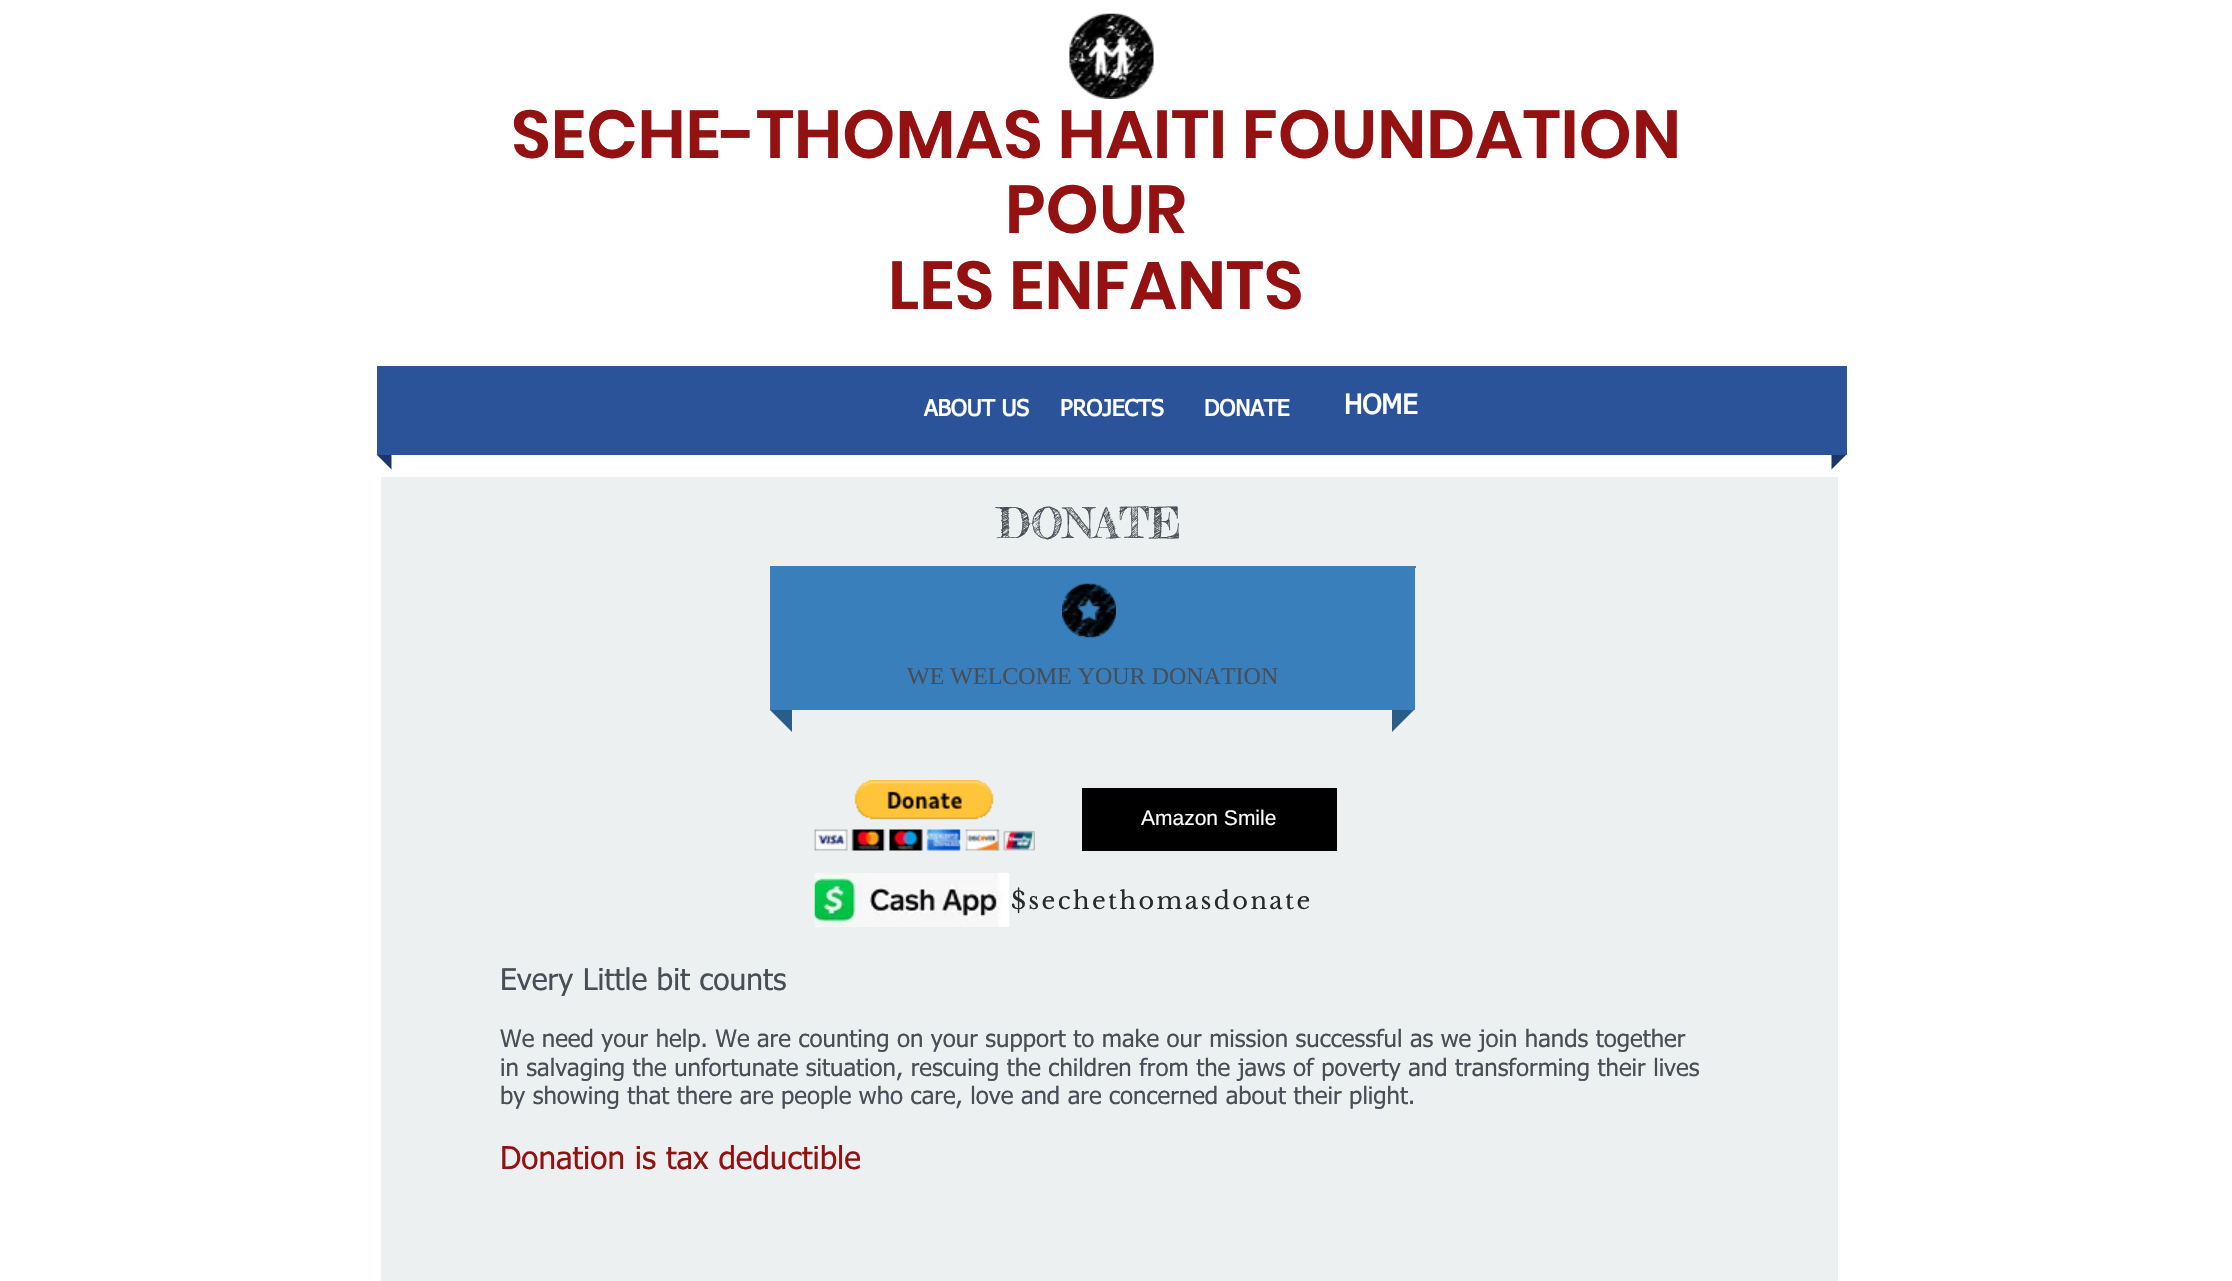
void draw(SkCanvas* c) {
SkPaint p;
p.setAntiAlias(true);
auto F=[&](const char* family, int weight, float size, bool italic = false){SkFontStyle style(weight, SkFontStyle::kNormal_Width,italic ? SkFontStyle::kItalic_Slant : SkFontStyle::kUpright_Slant);SkFont result(fontMgr->matchFamilyStyle(family, style), size);result.setSubpixel(true);return result;};
auto T=[&](const char* s, float x, float y, const SkFont& font){c->drawString(s, x, y, font, p);};
auto L=[&](const char* s, float x, float y, const SkFont& font, const SkPaint& ink, float letter, float word){std::vector<SkGlyphID> glyphs(font.countText(s, strlen(s), SkTextEncoding::kUTF8));std::vector<float> xs(glyphs.size());font.textToGlyphs(s, strlen(s), SkTextEncoding::kUTF8, glyphs);font.getXPos(glyphs, xs, x);float extra = 0;for (size_t i = 0; i < glyphs.size(); i++) {xs[i] += extra;extra += letter + word * (glyphs[i] == font.unicharToGlyph(' '));}c->drawTextBlob(SkTextBlob::MakeFromPosHGlyphs(glyphs, xs, y, font), 0, 0, ink);};
auto R=[&](float x, float y, float w, float h){c->drawRect(SkRect::MakeXYWH(x, y, w, h), p);};
auto I=[&](const char* path, float x, float y, float w, float h){auto image = SkImages::DeferredFromEncodedData(SkData::MakeFromFileName(path));c->drawImageRect(image, SkRect::MakeXYWH(x, y, w, h), SkSamplingOptions());};
auto P=[&](const char* data, bool evenOdd = false){SkPath result = *SkParsePath::FromSVGString(data);if (evenOdd) result.setFillType(SkPathFillType::kEvenOdd);return result;};
c->clear(0xffffffff);
I("1.png",1069,13,85,86);
auto f1 = F("Poppins",600,67.5);
p.setColor(0xff931111);
T("SECHE-THOMAS HAITI FOUNDATION",511,158,f1);
T("POUR",1005,233,f1);
T("LES ENFANTS",888,309,f1);
p.setColor(0xff1c3766);
c->drawPath(P("M376.5 454.5h15v15z"),p);
c->drawPath(P("M1831.5 454.5h15l-15 15z"),p);
p.setColor(0xff2a5399);
R(377,366,1470,89);
auto f2 = F("tahoma",700,22.5);
p.setColor(0xffffffff);
T("ABOUT US",924,416,f2);
T("PROJECTS",1060,416,f2);
T("DONATE",1204,416,f2);
auto f3 = F("tahoma",700,27);
T("HOME",1344,414,f3);
p.setColor(0xffecf0f1);
R(381,477,1457,804);
auto f4 = F("Fredericka the Great",400,42);
p.setColor(0xff484d56);
T("DONATE",997,538,f4);
p.setColor(0xff285e88);
c->drawPath(P("M769.5 709.5h22.5v22.5z"),p);
c->drawPath(P("M1392 709.5h22.5l-22.5 22.5z"),p);
p.setColor(0xff387fbb);
R(770,566,645,144);
R(1415,566,1,2);
I("2.png",1062,583,54,55);
auto f5 = F("Liberation Serif",400,24);
p.setColor(0xff484d56);
T("WE WELCOME YOUR DONATION",907,684,f5);
I("3.png",814,780,221,71);
p.setColor(0xff000000);
R(1082,788,255,63);
auto f6 = F("Liberation Sans",400,21);
p.setColor(0xffffffff);
T("Amazon Smile",1141,825,f6);
I("4.png",814,873,196,54);
auto f7 = F("Libre Baskerville",400,24);
p.setColor(0xff292929);
L("$sechethomasdonate",1011,909,f7,p,2.4,0);
auto f8 = F("tahoma",400,30);
p.setColor(0xff484d56);
T("Every Little bit counts",500,990,f8);
auto f9 = F("tahoma",400,24);
T("We need your help. We are counting on your support to make our mission successful as we join hands together",500,1047,f9);
T("in salvaging the unfortunate situation, rescuing the children from the jaws of poverty and transforming their lives",500,1076,f9);
T("by showing that there are people who care, love and are concerned about their plight.",500,1104,f9);
auto f10 = F("tahoma",400,31.5);
p.setColor(0xff931111);
T("Donation is tax deductible",500,1169,f10);
}
